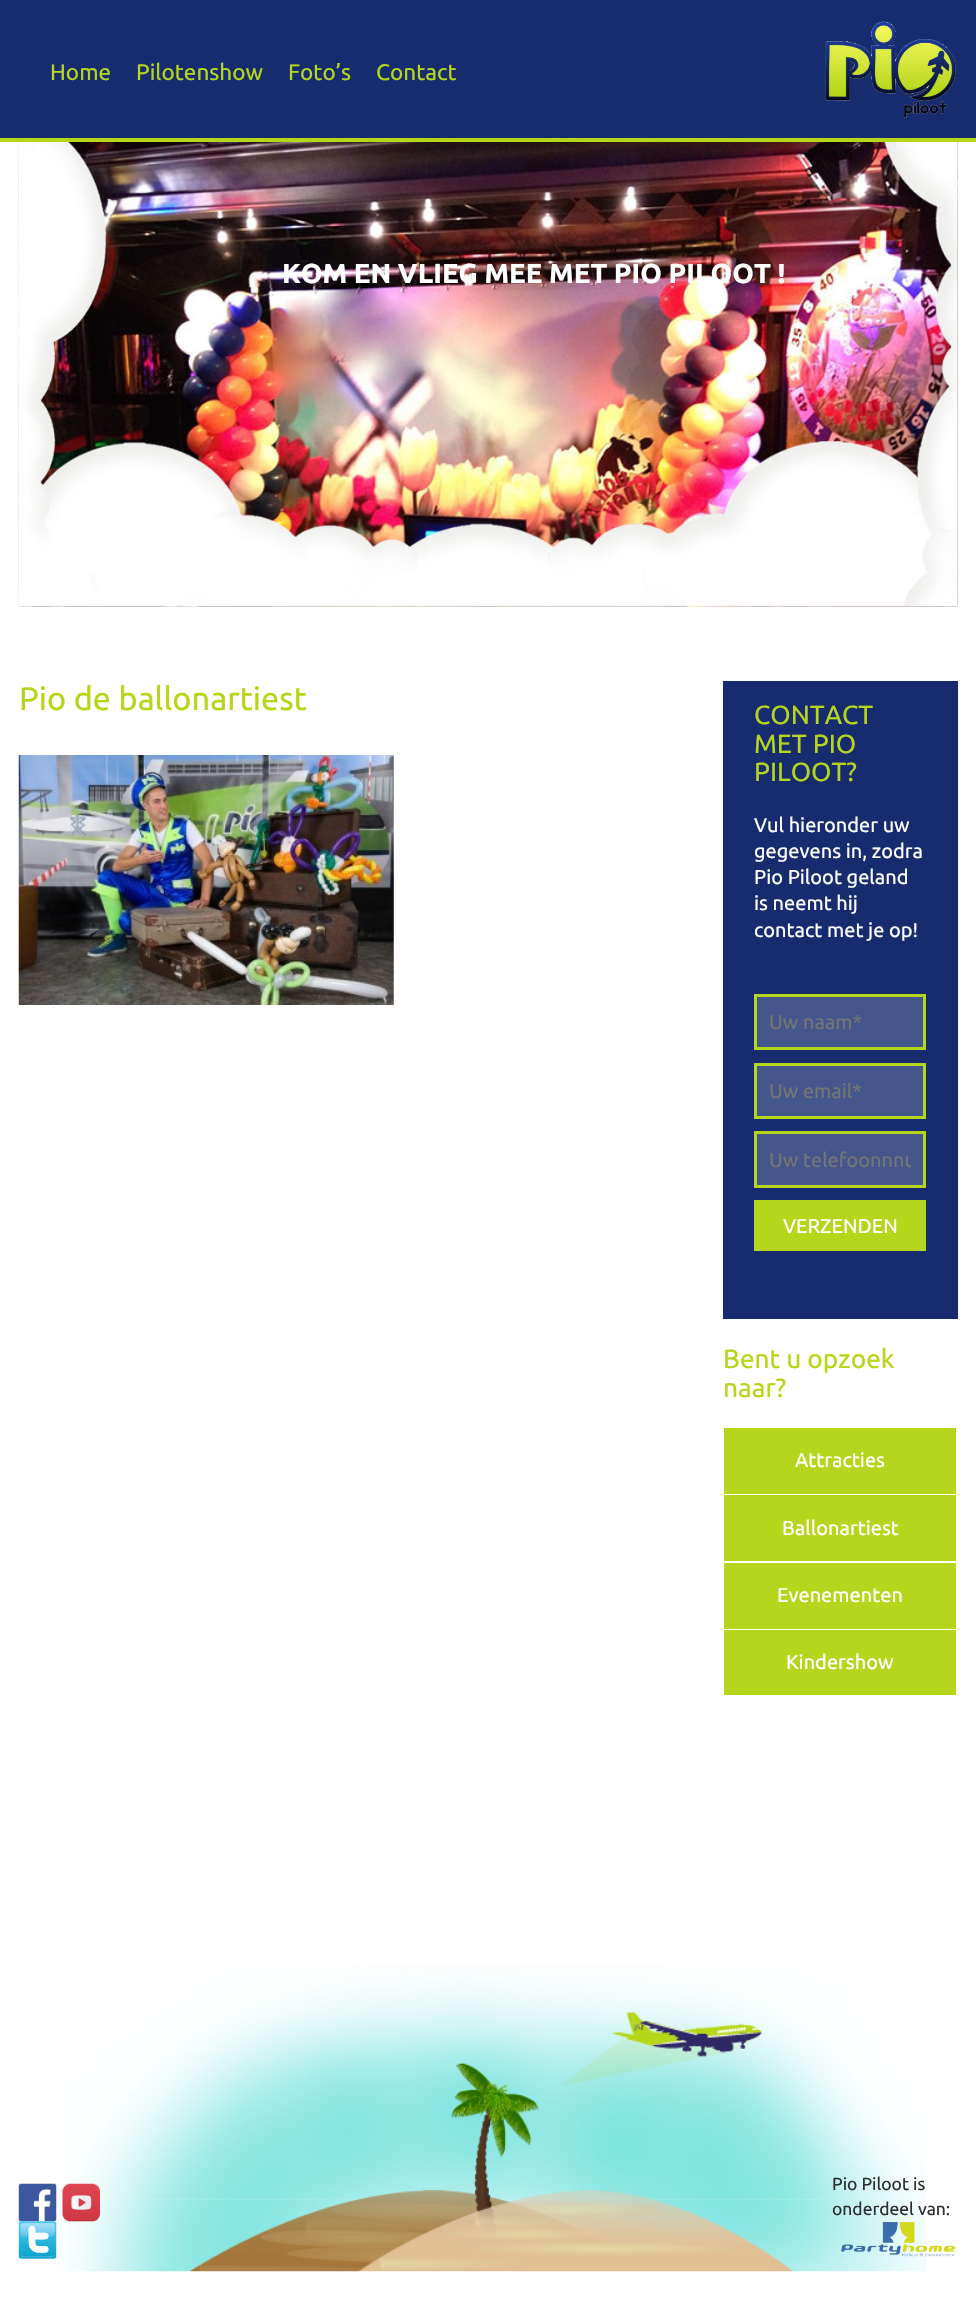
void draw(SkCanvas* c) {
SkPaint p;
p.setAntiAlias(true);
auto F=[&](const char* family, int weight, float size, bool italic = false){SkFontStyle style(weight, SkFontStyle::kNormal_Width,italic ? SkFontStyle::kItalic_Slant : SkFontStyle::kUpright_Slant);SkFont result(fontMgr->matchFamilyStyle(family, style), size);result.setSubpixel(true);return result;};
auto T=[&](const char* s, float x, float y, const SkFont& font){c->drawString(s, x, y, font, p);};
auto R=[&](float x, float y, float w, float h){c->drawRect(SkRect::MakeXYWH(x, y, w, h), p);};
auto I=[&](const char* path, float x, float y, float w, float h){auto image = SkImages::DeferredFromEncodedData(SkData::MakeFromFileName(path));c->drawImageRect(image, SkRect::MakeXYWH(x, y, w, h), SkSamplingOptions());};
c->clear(0xffffffff);
p.setColor(0xff172c6f);
R(0,0,976,138);
p.setColor(0xffb6d61b);
R(0,138,976,4);
auto f1 = F("Ubuntu",400,22.5);
T("Home",50,80,f1);
T("Pilotenshow",136,80,f1);
T("Foto’s",288,80,f1);
T("Contact",376,80,f1);
I("1.png",825,21,131,97);
I("2.png",18,142,940,465);
auto f2 = F("Ubuntu",700,27.5);
p.setColor(0xffffffff);
T("KOM EN VLIEG MEE MET PIO PILOOT !",282,283,f2);
I("3.png",19,142,939,465);
auto f3 = F("Ubuntu",400,32.5);
p.setColor(0xffb6d61b);
T("Pio de ballonartiest",19,710,f3);
I("4.png",18,755,376,250);
p.setColor(0xff172c6f);
R(723,681,235,638);
auto f4 = F("Ubuntu",400,26.25);
p.setColor(0xffb6d61b);
T("CONTACT",754,724,f4);
T("MET PIO",754,753,f4);
T("PILOOT?",754,781,f4);
auto f5 = F("Ubuntu",400,20);
p.setColor(0xffffffff);
T("Vul hieronder uw",754,832,f5);
T("gegevens in, zodra",754,858,f5);
T("Pio Piloot geland",754,884,f5);
T("is neemt hij",754,910,f5);
T("contact met je op!",754,937,f5);
p.setColor(0xff45568c);
c->drawRect(SkRect::MakeXYWH(755.5,995.5,169,53),p);
p.setStroke(true);
p.setStrokeWidth(3);
p.setColor(0xffb6d61b);
c->drawRect(SkRect::MakeXYWH(755.5,995.5,169,53),p);
p.setStroke(false);
p.setColor(0xff757575);
T("Uw naam*",769,1029,f5);
p.setColor(0xff45568c);
c->drawRect(SkRect::MakeXYWH(755.5,1064.5,169,53),p);
p.setStroke(true);
p.setColor(0xffb6d61b);
c->drawRect(SkRect::MakeXYWH(755.5,1064.5,169,53),p);
p.setStroke(false);
p.setColor(0xff757575);
T("Uw email*",769,1098,f5);
p.setColor(0xff45568c);
c->drawRect(SkRect::MakeXYWH(755.5,1132.5,169,54),p);
p.setStroke(true);
p.setColor(0xffb6d61b);
c->drawRect(SkRect::MakeXYWH(755.5,1132.5,169,54),p);
c->save();
c->clipRect(SkRect::MakeXYWH(769,1148,142,22));
p.setStroke(false);
p.setColor(0xff757575);
T("Uw telefoonnnu",769,1167,f5);
c->restore();
p.setColor(0xffb6d61b);
R(754,1200,172,51);
p.setColor(0xffffffff);
T("VERZENDEN",783,1233,f5);
p.setColor(0xffb6d61b);
T("Bent u opzoek",723,1368,f4);
T("naar?",723,1397,f4);
p.setColor(0xffb6d61d);
R(724,1428,232,66);
p.setColor(0xffffffff);
T("Attracties",795,1467,f5);
p.setColor(0xffb6d61d);
R(724,1495,232,66);
p.setColor(0xffffffff);
T("Ballonartiest",782,1535,f5);
p.setColor(0xffb6d61d);
R(724,1563,232,66);
p.setColor(0xffffffff);
T("Evenementen",777,1602,f5);
p.setColor(0xffb6d61d);
R(724,1630,232,65);
p.setColor(0xffffffff);
T("Kindershow",786,1669,f5);
I("5.png",57,1966,869,306);
I("6.png",18,2183,39,39);
I("7.png",62,2183,38,39);
I("8.png",18,2221,39,38);
auto f6 = F("Ubuntu",400,17.5);
p.setColor(0xff2e2e2e);
T("Pio Piloot is",832,2190,f6);
T("onderdeel van:",832,2215,f6);
I("9.png",841,2222,115,35);
}
